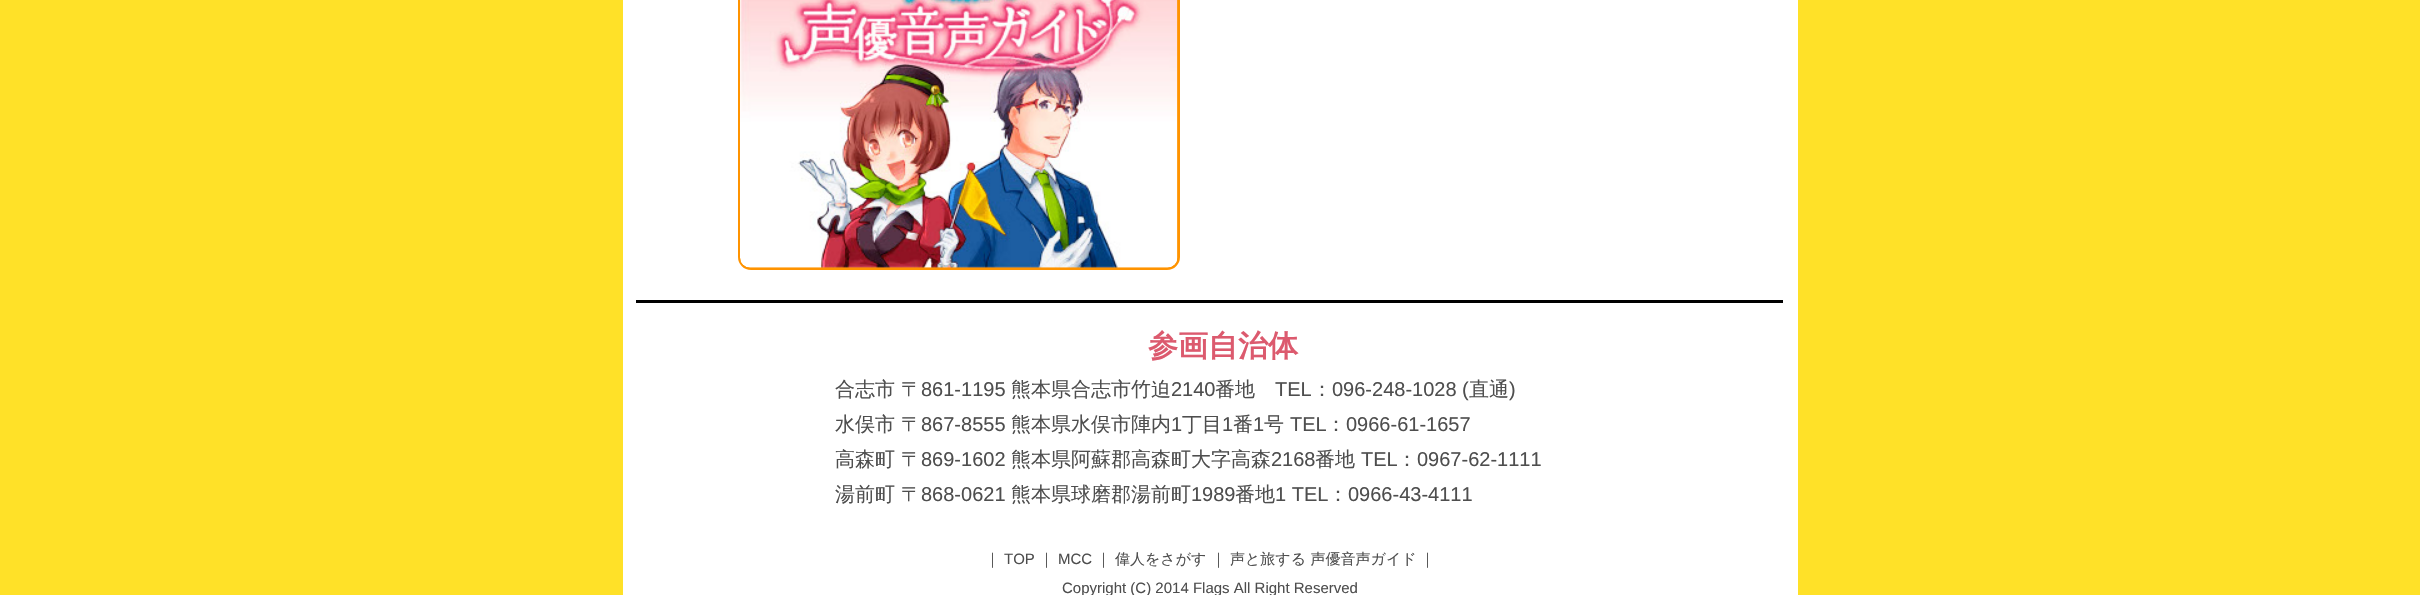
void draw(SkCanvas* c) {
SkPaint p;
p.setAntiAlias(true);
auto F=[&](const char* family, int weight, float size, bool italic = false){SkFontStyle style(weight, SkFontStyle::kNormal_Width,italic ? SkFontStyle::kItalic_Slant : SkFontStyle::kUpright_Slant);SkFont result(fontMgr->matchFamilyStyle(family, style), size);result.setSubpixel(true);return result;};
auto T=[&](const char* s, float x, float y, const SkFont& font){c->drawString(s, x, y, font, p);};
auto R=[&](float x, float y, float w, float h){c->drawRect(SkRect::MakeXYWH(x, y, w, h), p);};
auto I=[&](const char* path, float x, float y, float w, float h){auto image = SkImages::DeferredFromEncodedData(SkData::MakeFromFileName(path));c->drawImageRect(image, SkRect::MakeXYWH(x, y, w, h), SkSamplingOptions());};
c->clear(0xffffe128);
p.setColor(0xffffffff);
R(623,0,1175,595);
p.setStroke(true);
p.setStrokeWidth(3);
p.setColor(0xffff9300);
c->drawRoundRect(SkRect::MakeXYWH(739.5,-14.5,439,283),11.5,11.5,p);
I("1.png",740,0,438,268);
p.setStroke(false);
p.setColor(0xff000000);
R(636,300,1147,3);
auto f1 = F("WenQuanYi Zen Hei",700,30);
p.setColor(0xffdc5a6e);
T("参画自治体",1148,356,f1);
auto f2 = F("WenQuanYi Zen Hei",500,20);
p.setColor(0xff4e4e4e);
T("合志市",835,396,f2);
T("〒",901,396,f2);
auto f3 = F("Liberation Sans",400,20);
T("861-1195",921,396,f3);
T("熊本県合志市竹迫",1011,396,f2);
T("2140",1171,396,f3);
T("番地",1215,396,f2);
T("TEL",1275,396,f3);
T("：",1312,396,f2);
T("096-248-1028 (",1332,396,f3);
T("直通",1469,396,f2);
T(")",1509,396,f3);
T("水俣市 〒",835,431,f2);
T("867-8555",921,431,f3);
T("熊本県水俣市陣内",1011,431,f2);
T("1",1171,431,f3);
T("丁目",1182,431,f2);
T("1",1222,431,f3);
T("番",1233,431,f2);
T("1",1253,431,f3);
T("号",1264,431,f2);
T("TEL",1290,431,f3);
T("：",1326,431,f2);
T("0966-61-1657",1346,431,f3);
T("高森町 〒",835,466,f2);
T("869-1602",921,466,f3);
T("熊本県阿蘇郡高森町大字高森",1011,466,f2);
T("2168",1271,466,f3);
T("番地",1315,466,f2);
T("TEL",1361,466,f3);
T("：",1397,466,f2);
T("0967-62-1111",1417,466,f3);
T("湯前町",835,501,f2);
T("〒",901,501,f2);
T("868-0621",921,501,f3);
T("熊本県球磨郡湯前町",1011,501,f2);
T("1989",1191,501,f3);
T("番地",1235,501,f2);
T("1 TEL",1275,501,f3);
T("：",1328,501,f2);
T("0966-43-4111",1348,501,f3);
auto f4 = F("WenQuanYi Zen Hei",500,15);
T("｜",985,564,f4);
auto f5 = F("Liberation Sans",400,15);
T("TOP",1004,564,f5);
T("｜",1039,564,f4);
T("MCC",1058,564,f5);
T("｜",1096,564,f4);
T("偉人をさがす",1115,564,f4);
T("｜",1211,564,f4);
T("声と旅する 声優音声ガイド",1230,564,f4);
T("｜",1420,564,f4);
T("Copyright (C) 2014 Flags All Right Reserved",1062,593,f5);
}
